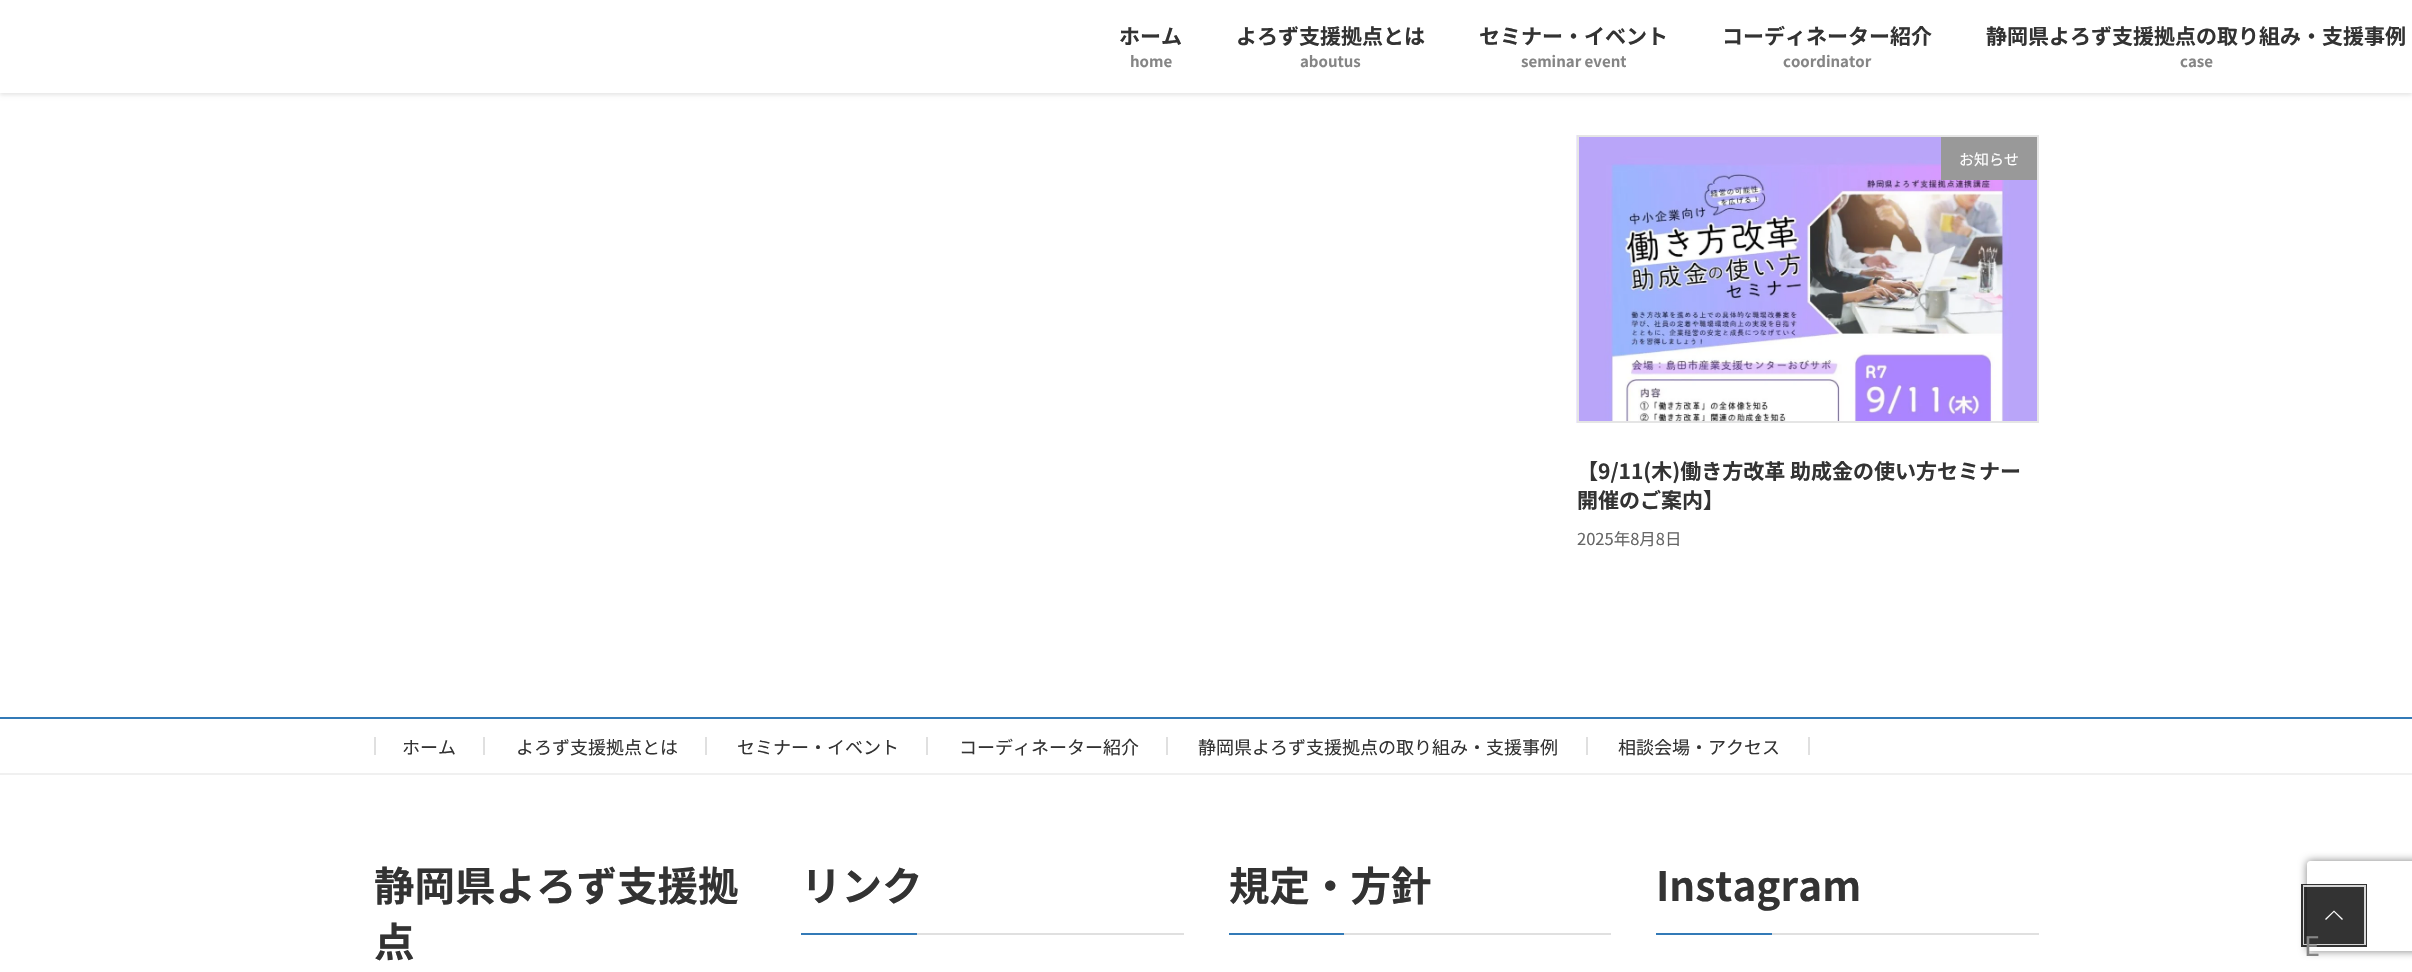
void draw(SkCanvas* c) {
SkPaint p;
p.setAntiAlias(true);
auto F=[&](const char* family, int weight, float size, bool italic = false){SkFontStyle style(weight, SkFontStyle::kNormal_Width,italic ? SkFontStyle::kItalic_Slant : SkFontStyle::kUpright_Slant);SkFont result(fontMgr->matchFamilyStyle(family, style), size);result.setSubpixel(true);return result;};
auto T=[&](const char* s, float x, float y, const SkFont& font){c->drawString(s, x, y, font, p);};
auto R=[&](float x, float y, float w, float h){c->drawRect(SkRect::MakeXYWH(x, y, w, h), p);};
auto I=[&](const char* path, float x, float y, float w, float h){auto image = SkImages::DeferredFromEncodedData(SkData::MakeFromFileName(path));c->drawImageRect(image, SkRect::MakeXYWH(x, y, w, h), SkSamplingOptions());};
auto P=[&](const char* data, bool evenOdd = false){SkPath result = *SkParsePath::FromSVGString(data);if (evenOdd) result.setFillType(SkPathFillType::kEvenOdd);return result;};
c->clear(0xffffffff);
p.setColor(0x1a000000);
p.setMaskFilter(SkMaskFilter::MakeBlur(kNormal_SkBlurStyle, 2));
c->drawRect(SkRect::MakeXYWH(0,2,2412,93),p);
p.setMaskFilter(nullptr);
p.setColor(0xffffffff);
R(0,0,2412,93);
auto f1 = F("Noto Sans JP",700,21);
p.setColor(0xff333333);
T("ホーム",1119,44,f1);
auto f2 = F("Noto Sans JP",700,15);
p.setColor(0xff858585);
T("home",1130,67,f2);
p.setColor(0xff333333);
T("よろず支援拠点とは",1236,44,f1);
p.setColor(0xff858585);
T("aboutus",1300,67,f2);
p.setColor(0xff333333);
T("セミナー・イベント",1479,44,f1);
c->save();
c->clipRect(SkRect::MakeXYWH(1521,51,105,21));
p.setColor(0xff858585);
T("seminar event",1521,67,f2);
c->restore();
p.setColor(0xff333333);
T("コーディネーター紹介",1722,44,f1);
p.setColor(0xff858585);
T("coordinator",1783,67,f2);
p.setColor(0xff333333);
T("静岡県よろず支援拠点の取り組み・支援事例",1986,44,f1);
p.setColor(0xff858585);
T("case",2180,67,f2);
I("1.png",1576,135,461,288);
p.setStroke(true);
p.setStrokeWidth(2);
p.setColor(0xffe5e5e5);
c->drawRect(SkRect::MakeXYWH(1578,136,460,286),p);
p.setStroke(false);
p.setColor(0xff999999);
R(1941,137,96,43);
auto f3 = F("Noto Sans JP",400,15);
p.setColor(0xffffffff);
T("お知らせ",1959,165,f3);
p.setColor(0xff333333);
T("【9/11(木)働き方改革 助成金の使い方セミナー",1577,479,f1);
T("開催のご案内】",1577,508,f1);
auto f4 = F("Noto Sans JP",400,16.5);
p.setColor(0xff666666);
T("2025年8月8日",1577,545,f4);
p.setColor(0xff337ab7);
R(0,717,2412,2);
p.setColor(0xfff0f0f0);
R(0,773,2412,2);
p.setColor(0xffe0e0e0);
R(483,737,2,18);
R(374,737,2,18);
auto f5 = F("Noto Sans JP",400,18);
p.setColor(0xff333333);
T("ホーム",402,754,f5);
p.setColor(0xffe0e0e0);
R(705,737,2,18);
p.setColor(0xff333333);
T("よろず支援拠点とは",516,754,f5);
p.setColor(0xffe0e0e0);
R(926,737,2,18);
p.setColor(0xff333333);
T("セミナー・イベント",737,754,f5);
p.setColor(0xffe0e0e0);
R(1166,737,2,18);
p.setColor(0xff333333);
T("コーディネーター紹介",959,754,f5);
p.setColor(0xffe0e0e0);
R(1586,737,2,18);
p.setColor(0xff333333);
T("静岡県よろず支援拠点の取り組み・支援事例",1198,754,f5);
p.setColor(0xffe0e0e0);
R(1808,737,2,18);
p.setColor(0xff333333);
T("相談会場・アクセス",1618,754,f5);
auto f6 = F("Noto Sans JP",700,40.5);
T("静岡県よろず支援拠",374,901,f6);
T("点",374,957,f6);
p.setColor(0xffe0e0e0);
R(917,933,267,2);
p.setColor(0xff333333);
T("リンク",801,901,f6);
p.setColor(0xff337ab7);
R(801,933,116,2);
p.setColor(0xffe0e0e0);
R(1344,933,267,2);
p.setColor(0xff333333);
T("規定・方針",1229,901,f6);
p.setColor(0xff337ab7);
R(1229,933,115,2);
p.setColor(0xffe0e0e0);
R(1772,933,267,2);
p.setColor(0xff333333);
T("Instagram",1656,901,f6);
p.setColor(0xff337ab7);
R(1656,933,116,2);
c->save();
c->clipPath(P("M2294 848h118v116h-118zm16 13h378c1.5 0 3 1.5 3 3v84c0 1.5-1.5 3-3 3h-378c-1.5 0-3-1.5-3-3v-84c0-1.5 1.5-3 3-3z",true),true);
p.setColor(0xff808080);
p.setMaskFilter(SkMaskFilter::MakeBlur(kNormal_SkBlurStyle, 4));
c->drawRoundRect(SkRect::MakeXYWH(2307,861,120,90),3,3,p);
p.setMaskFilter(nullptr);
c->restore();
p.setStroke(true);
p.setStrokeWidth(3);
p.setColor(0xcc000000);
c->drawRect(SkRect::MakeXYWH(2302.5,885.5,63,60),p);
p.setStrokeWidth(2);
p.setColor(0xccffffff);
c->drawRect(SkRect::MakeXYWH(2304,886,61,58),p);
p.setStroke(false);
p.setColor(0xcc000000);
R(2304,887,60,57);
p.setColor(0xffffffff);
c->drawPath(P("M2343 919l-1 1l-8-8l-8 8l-1-1l9-8.5z"),p);
auto f7 = F("Noto Sans JP",400,27);
p.setColor(0xff858585);
T("E",2304,956,f7);
}
